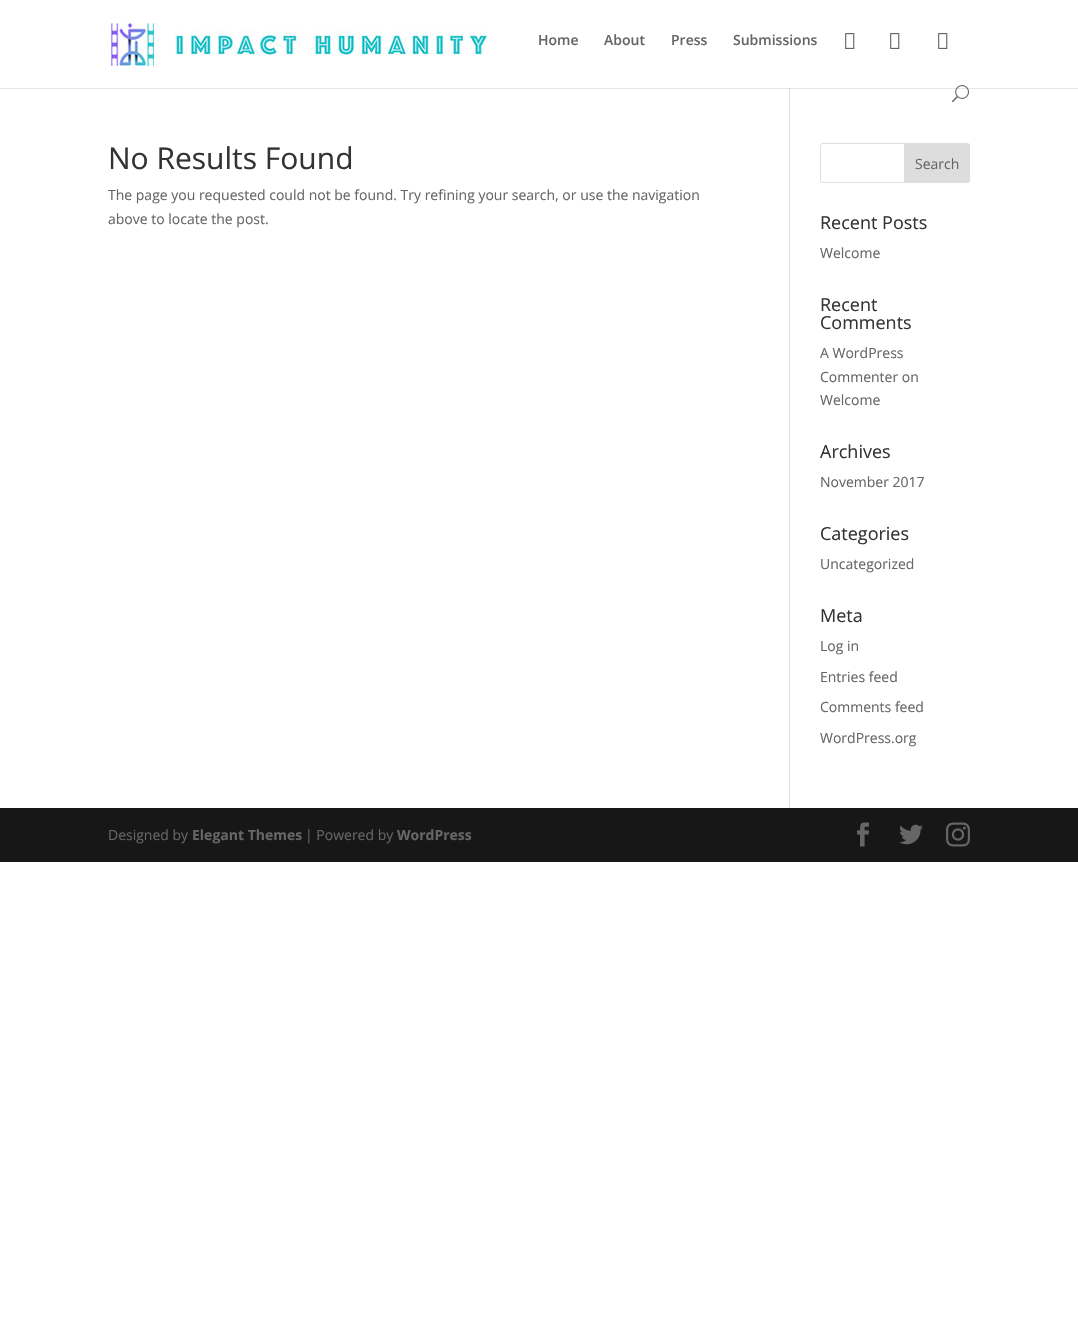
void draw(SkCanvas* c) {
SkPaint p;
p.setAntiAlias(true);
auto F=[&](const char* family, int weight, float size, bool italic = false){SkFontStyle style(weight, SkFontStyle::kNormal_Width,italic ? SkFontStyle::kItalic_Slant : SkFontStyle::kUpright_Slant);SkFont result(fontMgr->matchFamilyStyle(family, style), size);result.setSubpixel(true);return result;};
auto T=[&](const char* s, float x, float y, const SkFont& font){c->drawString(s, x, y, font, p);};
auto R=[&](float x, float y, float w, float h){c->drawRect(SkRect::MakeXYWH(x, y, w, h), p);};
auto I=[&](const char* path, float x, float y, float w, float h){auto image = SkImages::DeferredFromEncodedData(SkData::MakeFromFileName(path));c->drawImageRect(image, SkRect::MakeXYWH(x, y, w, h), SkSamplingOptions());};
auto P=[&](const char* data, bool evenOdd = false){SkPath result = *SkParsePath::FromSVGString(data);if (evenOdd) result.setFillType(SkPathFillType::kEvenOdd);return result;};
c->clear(0xffffffff);
p.setColor(0xffe6e6e6);
R(0,88,1078,1);
p.setColor(0xffe2e2e2);
R(789,85,1,723);
p.setColor(0xffffffff);
R(789,85,1,3);
I("1.png",111,23,376,43);
auto f1 = F("Open Sans",600,14);
p.setColor(0xff666666);
T("Home",538,45,f1);
T("About",604,45,f1);
T("Press",671,45,f1);
T("Submissions",733,45,f1);
I("2.png",845,33,10,16);
I("2.png",890,33,10,16);
I("2.png",938,33,10,16);
I("3.png",952,85,17,18);
p.setColor(0xffcbcbcb);
R(789,88,1,1);
auto f2 = F("Open Sans",400,30);
p.setColor(0xff333333);
T("No Results Found",108,169,f2);
auto f3 = F("Open Sans",400,14);
p.setColor(0xff666666);
T("The page you requested could not be found. Try refining your search, or use the navigation",108,200,f3);
T("above to locate the post.",108,224,f3);
p.setStroke(true);
p.setStrokeWidth(1);
p.setColor(0xffdddddd);
c->drawRoundRect(SkRect::MakeXYWH(820.5,143.5,149,39),2.5,2.5,p);
p.setStroke(false);
c->drawPath(P("M904.5 143.5h62.5c1.5 0 2.5 1 2.5 2.5v34c0 1.5-1 2.5-2.5 2.5h-62.5z"),p);
p.setStroke(true);
c->drawPath(P("M904.5 143.5h62.5c1.5 0 2.5 1 2.5 2.5v34c0 1.5-1 2.5-2.5 2.5h-62.5z"),p);
p.setStroke(false);
p.setColor(0xff666666);
T("Search",915,169,f3);
auto f4 = F("Open Sans",400,18);
p.setColor(0xff333333);
T("Recent Posts",820,229,f4);
p.setColor(0xff666666);
T("Welcome",820,258,f3);
p.setColor(0xff333333);
T("Recent",820,311,f4);
T("Comments",820,329,f4);
p.setColor(0xff666666);
T("A WordPress",820,358,f3);
T("Commenter on",820,382,f3);
T("Welcome",820,405,f3);
p.setColor(0xff333333);
T("Archives",820,458,f4);
p.setColor(0xff666666);
T("November 2017",820,487,f3);
p.setColor(0xff333333);
T("Categories",820,540,f4);
p.setColor(0xff666666);
T("Uncategorized",820,569,f3);
p.setColor(0xff333333);
T("Meta",820,622,f4);
p.setColor(0xff666666);
T("Log in",820,651,f3);
T("Entries feed",820,682,f3);
T("Comments feed",820,712,f3);
T("WordPress.org",820,743,f3);
p.setColor(0xff171717);
R(0,808,1078,54);
p.setColor(0xff666666);
T("Designed by",108,840,f3);
auto f5 = F("Open Sans",700,14);
T("Elegant Themes",192,840,f5);
T("| Powered by",305,840,f3);
T("WordPress",397,840,f5);
I("4.png",857,822,12,25);
I("5.png",899,824,24,21);
I("6.png",946,822,24,25);
}
